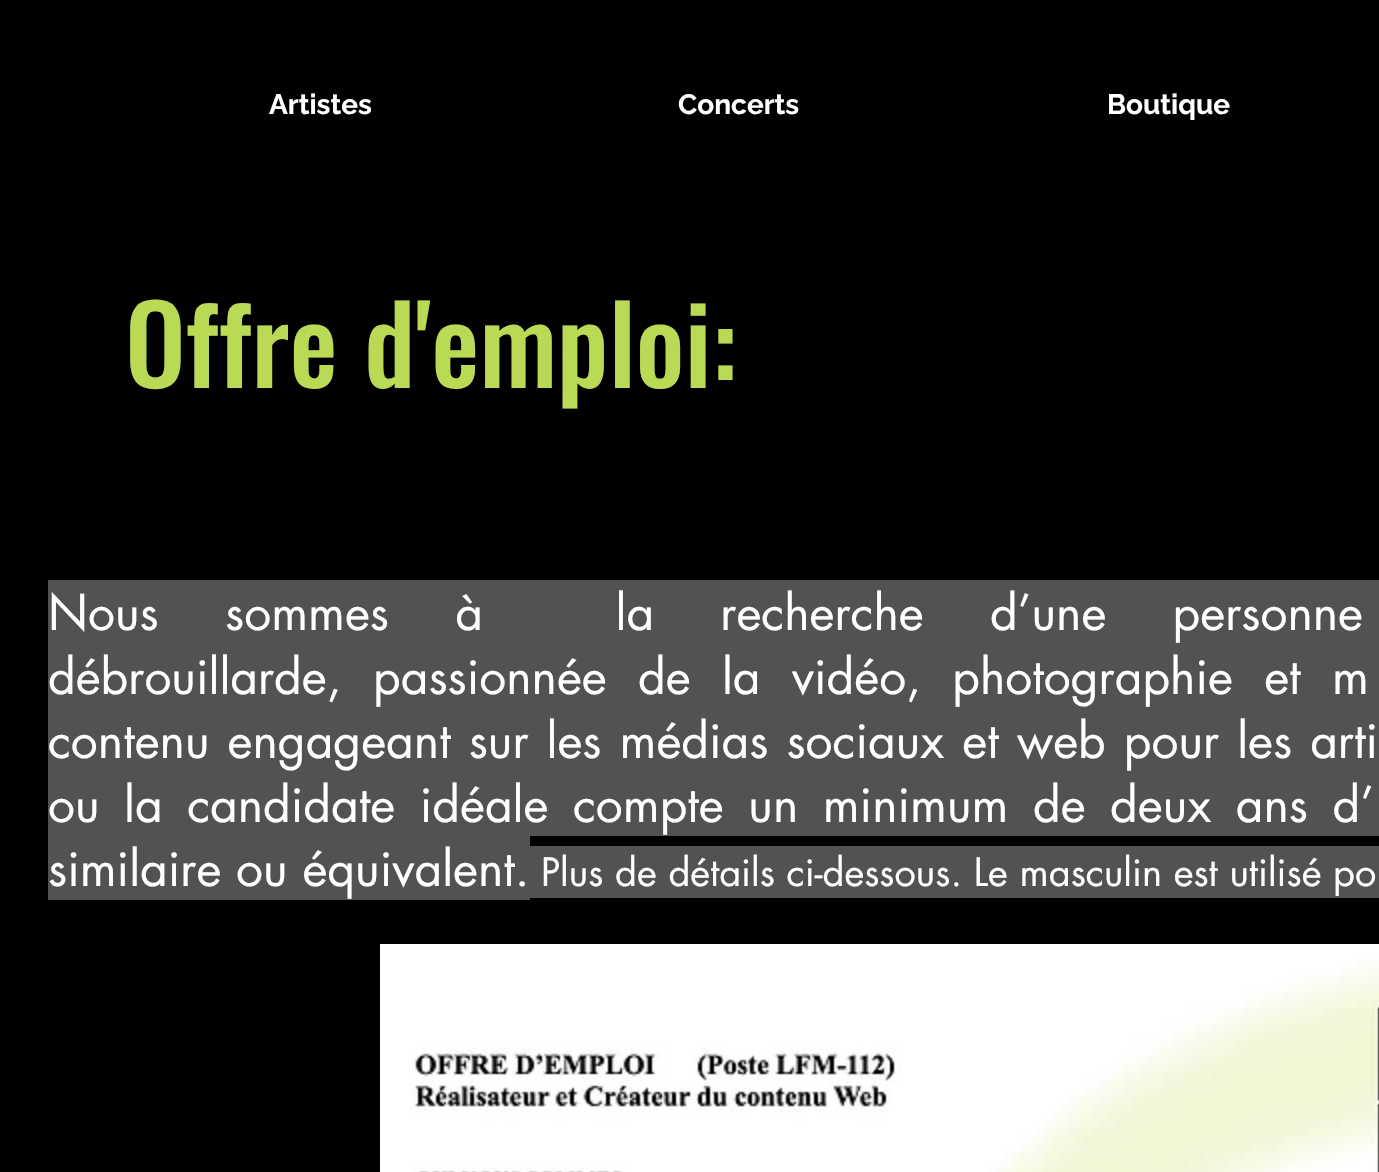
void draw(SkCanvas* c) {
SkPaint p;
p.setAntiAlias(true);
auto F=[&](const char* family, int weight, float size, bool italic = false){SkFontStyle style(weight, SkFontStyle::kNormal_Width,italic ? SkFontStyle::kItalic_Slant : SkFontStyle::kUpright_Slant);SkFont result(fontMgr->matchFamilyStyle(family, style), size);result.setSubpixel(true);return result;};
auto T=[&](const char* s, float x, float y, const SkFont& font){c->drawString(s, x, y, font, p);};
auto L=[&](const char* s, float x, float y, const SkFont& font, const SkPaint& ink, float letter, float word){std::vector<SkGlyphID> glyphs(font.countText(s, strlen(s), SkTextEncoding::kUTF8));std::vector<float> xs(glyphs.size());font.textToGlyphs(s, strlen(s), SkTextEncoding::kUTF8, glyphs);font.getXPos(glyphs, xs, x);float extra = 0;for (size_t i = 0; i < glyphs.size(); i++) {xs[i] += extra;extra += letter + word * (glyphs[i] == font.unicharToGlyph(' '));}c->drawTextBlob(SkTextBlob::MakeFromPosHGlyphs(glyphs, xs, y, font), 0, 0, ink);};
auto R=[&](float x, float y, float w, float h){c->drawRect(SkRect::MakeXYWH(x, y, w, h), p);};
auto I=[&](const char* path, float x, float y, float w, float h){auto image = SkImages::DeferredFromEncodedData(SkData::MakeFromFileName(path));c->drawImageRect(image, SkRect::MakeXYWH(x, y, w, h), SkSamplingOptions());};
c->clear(0xff000000);
auto f1 = F("Raleway",700,28);
p.setColor(0xffffffff);
T("Artistes",269,114,f1);
T("Concerts",678,114,f1);
T("Boutique",1107,114,f1);
auto f2 = F("Oswald",500,108);
p.setColor(0xffbada55);
T("Offre d'emploi:",125,388,f2);
p.setColor(0xff525252);
R(48,580,1331,64);
auto f3 = F("futura",400,48);
p.setColor(0xffffffff);
L("Nous sommes à  la recherche d’une personne",48,630,f3,p,0,51.5);
p.setColor(0xff525252);
R(48,644,1331,192);
p.setColor(0xffffffff);
T("débrouillarde,",48,694,f3);
L("passionnée de la vidéo, photographie et m",373,694,f3,p,0,16.5);
L("contenu engageant sur les médias sociaux et web pour les arti",48,758,f3,p,0,3.25);
L("ou la candidate idéale compte un minimum de deux ans d’",48,822,f3,p,0,9.75);
p.setColor(0xff525252);
R(48,836,482,64);
p.setColor(0xffffffff);
T("similaire ou équivalent.",48,886,f3);
p.setColor(0xff525252);
R(530,846,849,52);
auto f4 = F("futura",400,38);
p.setColor(0xffffffff);
T("Plus de détails ci-dessous. Le masculin est utilisé po",541,886,f4);
I("1.png",380,944,999,228);
}
